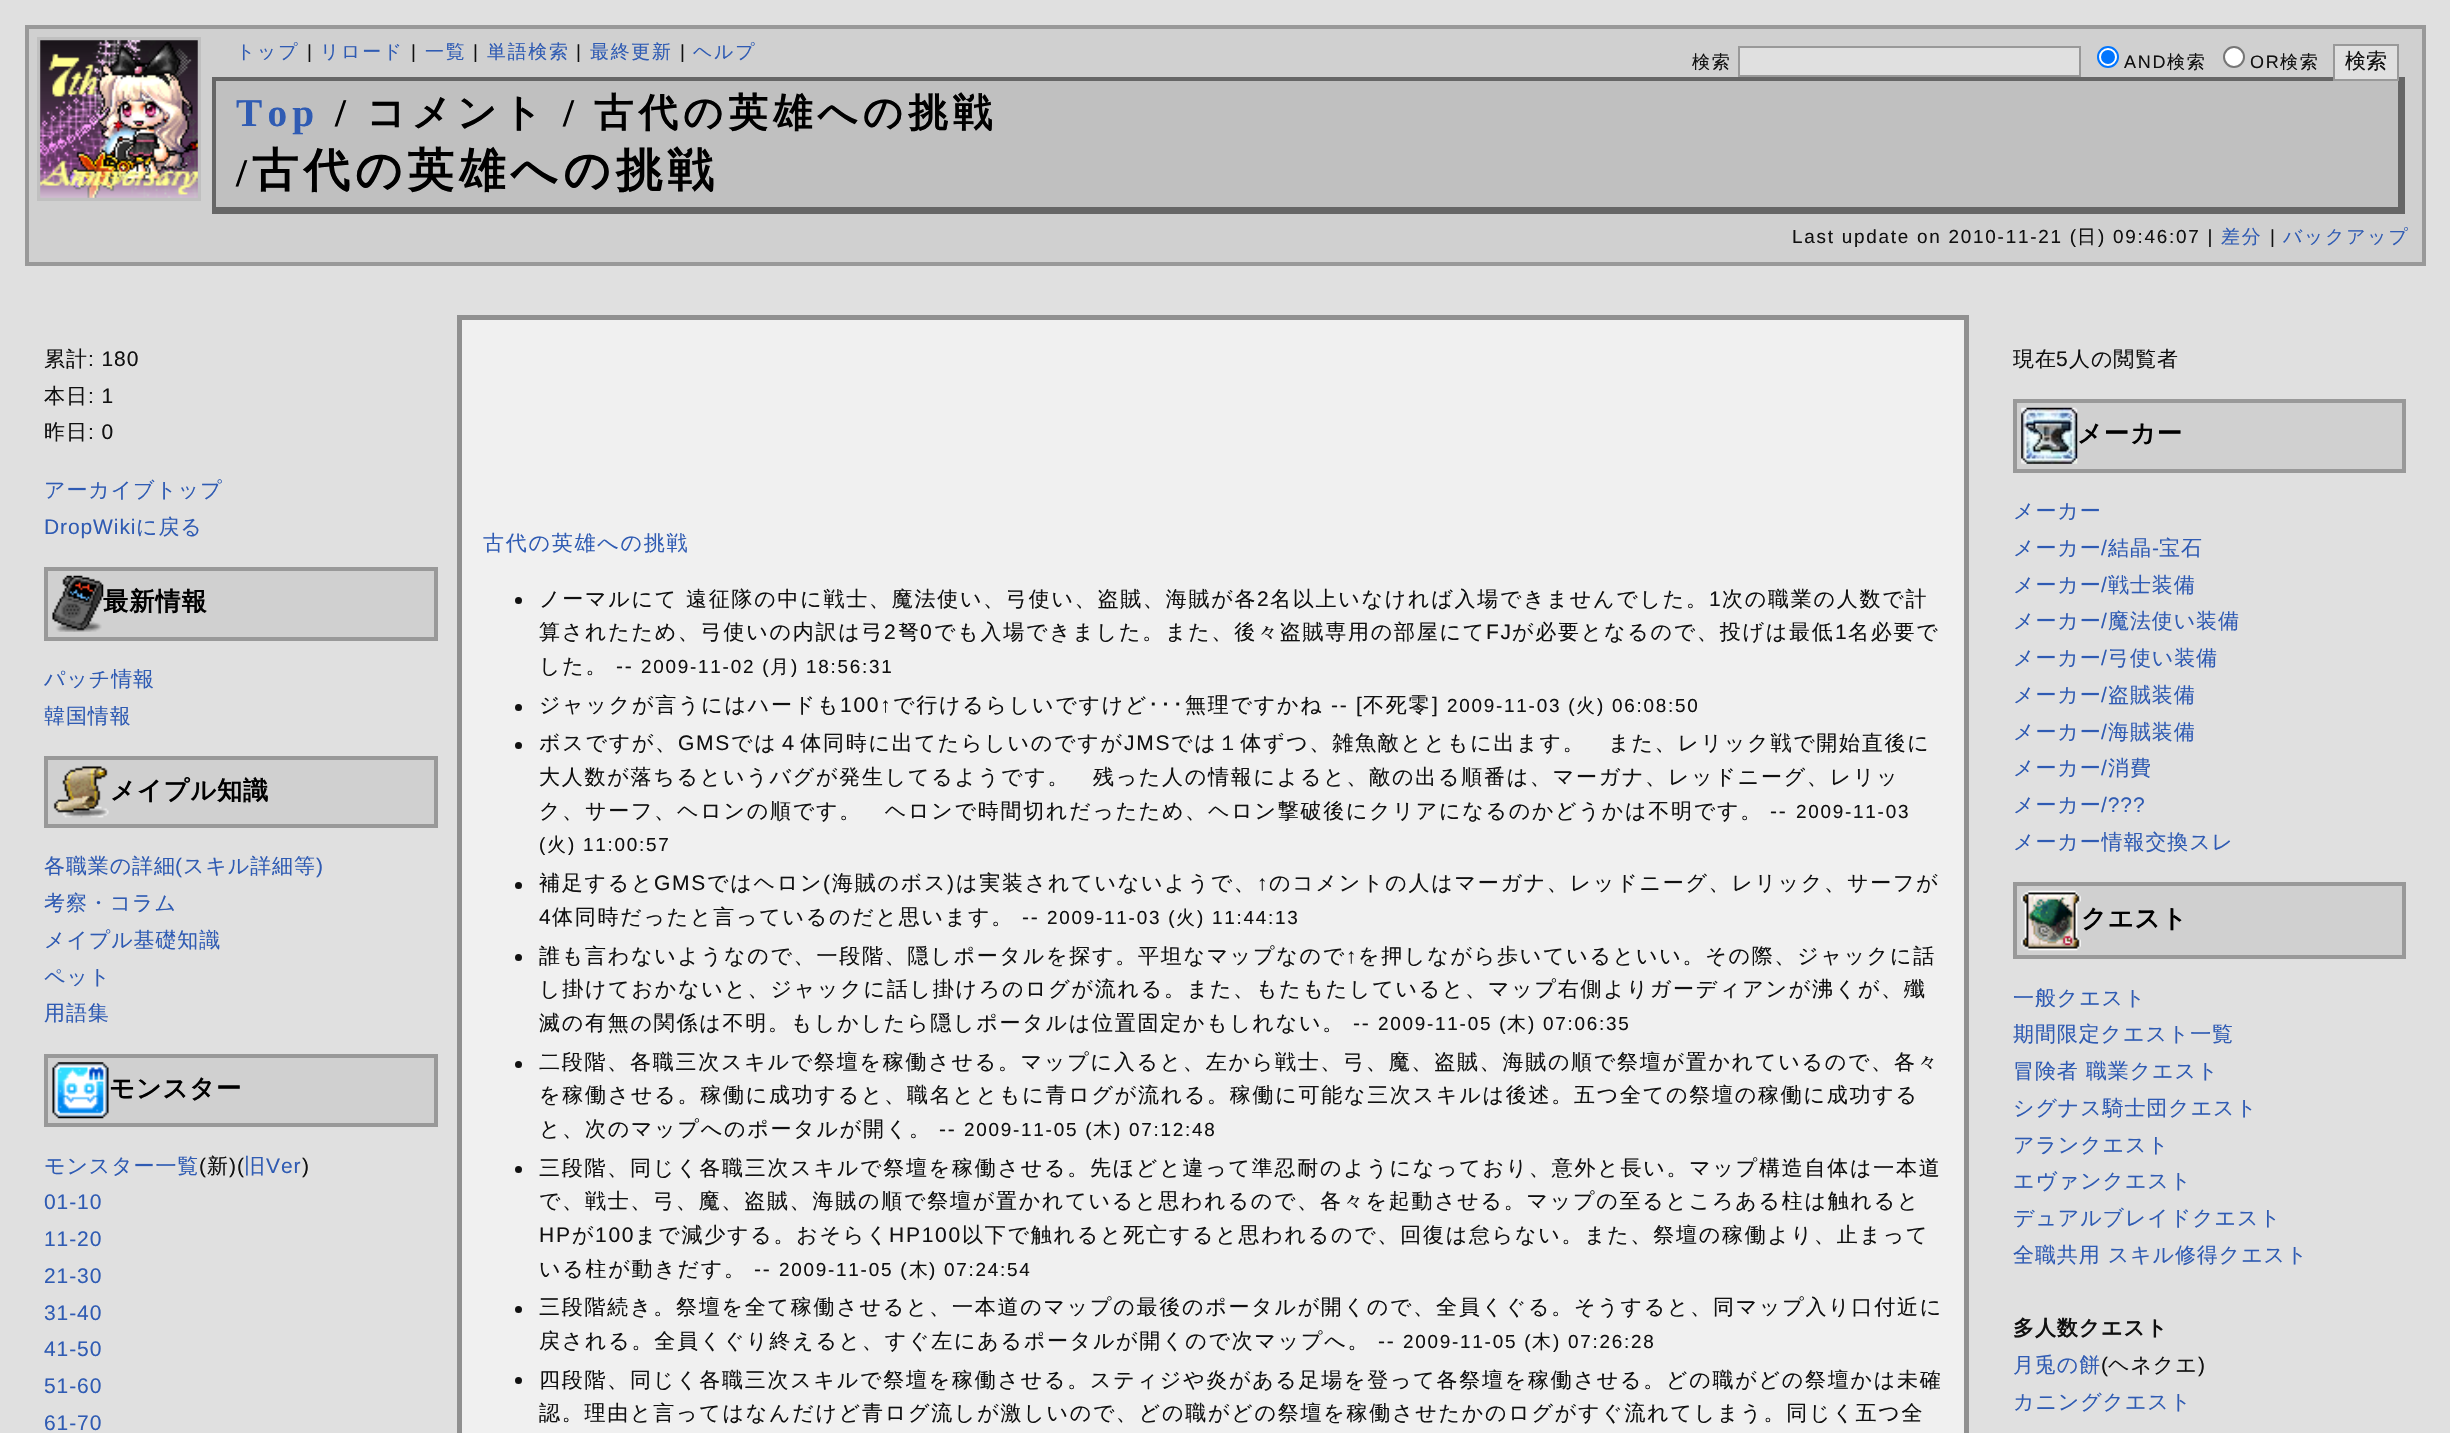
void draw(SkCanvas* c) {
SkPaint p;
p.setAntiAlias(true);
auto F=[&](const char* family, int weight, float size, bool italic = false){SkFontStyle style(weight, SkFontStyle::kNormal_Width,italic ? SkFontStyle::kItalic_Slant : SkFontStyle::kUpright_Slant);SkFont result(fontMgr->matchFamilyStyle(family, style), size);result.setSubpixel(true);return result;};
auto T=[&](const char* s, float x, float y, const SkFont& font){c->drawString(s, x, y, font, p);};
auto L=[&](const char* s, float x, float y, const SkFont& font, const SkPaint& ink, float letter, float word){std::vector<SkGlyphID> glyphs(font.countText(s, strlen(s), SkTextEncoding::kUTF8));std::vector<float> xs(glyphs.size());font.textToGlyphs(s, strlen(s), SkTextEncoding::kUTF8, glyphs);font.getXPos(glyphs, xs, x);float extra = 0;for (size_t i = 0; i < glyphs.size(); i++) {xs[i] += extra;extra += letter + word * (glyphs[i] == font.unicharToGlyph(' '));}c->drawTextBlob(SkTextBlob::MakeFromPosHGlyphs(glyphs, xs, y, font), 0, 0, ink);};
auto R=[&](float x, float y, float w, float h){c->drawRect(SkRect::MakeXYWH(x, y, w, h), p);};
auto I=[&](const char* path, float x, float y, float w, float h){auto image = SkImages::DeferredFromEncodedData(SkData::MakeFromFileName(path));c->drawImageRect(image, SkRect::MakeXYWH(x, y, w, h), SkSamplingOptions());};
c->clear(0xffe0e0e0);
p.setColor(0xffd0d0d0);
c->drawRect(SkRect::MakeXYWH(27,27,2397,237),p);
p.setStroke(true);
p.setStrokeWidth(4);
p.setColor(0xff999999);
c->drawRect(SkRect::MakeXYWH(27,27,2397,237),p);
p.setColor(0xffc0c0c0);
c->drawRect(SkRect::MakeXYWH(39,39,160,160),p);
I("1.png",40,40,158,158);
auto f1 = F("WenQuanYi Zen Hei",500,18.9);
p.setStroke(false);
p.setColor(0xff2f5bb3);
L("トップ",236,58,f1,p,1.75,0);
auto f2 = F("Liberation Sans",400,18.9);
p.setColor(0xff101010);
L("|",307,58,f2,p,1.75,0);
p.setColor(0xff2f5bb3);
L("リロード",320,58,f1,p,1.75,0);
p.setColor(0xff101010);
L("|",411,58,f2,p,1.75,0);
p.setColor(0xff2f5bb3);
L("一覧",425,58,f1,p,1.75,0);
p.setColor(0xff101010);
L("|",473,58,f2,p,1.75,0);
p.setColor(0xff2f5bb3);
L("単語検索",487,58,f1,p,1.75,0);
p.setColor(0xff101010);
L("|",576,58,f2,p,1.75,0);
p.setColor(0xff2f5bb3);
L("最終更新",590,58,f1,p,1.75,0);
p.setColor(0xff101010);
L("|",680,58,f2,p,1.75,0);
p.setColor(0xff2f5bb3);
L("ヘルプ",693,58,f1,p,1.75,0);
auto f3 = F("WenQuanYi Zen Hei",500,18);
p.setColor(0xff101010);
L("検索",1692,68,f3,p,1.75,0);
p.setColor(0xffe0e0e0);
c->drawRect(SkRect::MakeXYWH(1739,47,341,29),p);
p.setStroke(true);
p.setStrokeWidth(2);
p.setColor(0xff999999);
c->drawRect(SkRect::MakeXYWH(1739,47,341,29),p);
p.setStroke(false);
p.setColor(0xffffffff);
c->drawCircle(2108,57,10,p);
p.setStroke(true);
p.setColor(0xff0075ff);
c->drawCircle(2108,57,10,p);
p.setStroke(false);
c->drawCircle(2108,57,7,p);
auto f4 = F("Liberation Sans",400,18);
p.setColor(0xff101010);
L("AND",2124,68,f4,p,1.75,0);
L("検索",2167,68,f3,p,1.75,0);
p.setColor(0xffffffff);
c->drawCircle(2234,57,10,p);
p.setStroke(true);
p.setColor(0xff767676);
c->drawCircle(2234,57,10,p);
p.setStroke(false);
p.setColor(0xff101010);
L("OR",2250,68,f4,p,1.75,0);
L("検索",2280,68,f3,p,1.75,0);
p.setColor(0xff666666);
R(2398,77,7,137);
p.setColor(0xffe0e0e0);
c->drawRect(SkRect::MakeXYWH(2334,45,64,35),p);
p.setStroke(true);
p.setColor(0xff999999);
c->drawRect(SkRect::MakeXYWH(2334,45,64,35),p);
auto f5 = F("WenQuanYi Zen Hei",500,21);
p.setStroke(false);
p.setColor(0xff101010);
T("検索",2345,68,f5);
p.setColor(0xffc0c0c0);
R(216,81,2182,126);
p.setColor(0xff666666);
R(212,77,2121,4);
R(212,207,2193,7);
R(212,77,4,137);
auto f6 = F("Liberation Serif",700,39.25);
p.setColor(0xff2f5bb3);
L("Top",236,126,f6,p,5.25,0);
p.setColor(0xff000000);
L("/",335,126,f6,p,5.25,0);
auto f7 = F("WenQuanYi Zen Hei",700,39.25);
L("コメント",366,126,f7,p,5.25,0);
L("/",563,126,f6,p,5.25,0);
L("古代の英雄への挑戦",594,126,f7,p,5.25,0);
L("/",236,186,f6,p,5.25,0);
auto f8 = F("WenQuanYi Zen Hei",700,46.25);
L("古代の英雄への挑戦",252,186,f8,p,5.25,0);
p.setColor(0xff101010);
L("Last update on 2010-11-21 (",1792,243,f2,p,1.75,0);
L("日",2077,243,f1,p,1.75,0);
L(") 09:46:07 |",2098,243,f2,p,1.75,0);
p.setColor(0xff2f5bb3);
L("差分",2221,243,f1,p,1.75,0);
p.setColor(0xff101010);
L("|",2270,243,f2,p,1.75,0);
p.setColor(0xff2f5bb3);
L("バックアップ",2283,243,f1,p,1.75,0);
p.setColor(0xff101010);
L("累計",44,366,f5,p,.9,0);
auto f9 = F("Liberation Sans",400,21);
L(": 180",88,366,f9,p,.9,0);
L("本日",44,403,f5,p,.9,0);
L(": 1",88,403,f9,p,.9,0);
L("昨日",44,439,f5,p,.9,0);
L(": 0",88,439,f9,p,.9,0);
p.setColor(0xff2f5bb3);
L("アーカイブトップ",44,497,f5,p,.9,0);
L("DropWiki",44,534,f9,p,.9,0);
L("に戻る",136,534,f5,p,.9,0);
p.setColor(0xffd0d0d0);
c->drawRect(SkRect::MakeXYWH(46,569,390,70),p);
p.setStroke(true);
p.setStrokeWidth(4);
p.setColor(0xff999999);
c->drawRect(SkRect::MakeXYWH(46,569,390,70),p);
I("2.png",52,575,52,57);
auto f10 = F("WenQuanYi Zen Hei",700,25.25);
p.setStroke(false);
p.setColor(0xff000000);
L("最新情報",103,610,f10,p,.9,0);
p.setColor(0xff2f5bb3);
L("パッチ情報",44,686,f5,p,.9,0);
L("韓国情報",44,723,f5,p,.9,0);
p.setColor(0xffd0d0d0);
c->drawRect(SkRect::MakeXYWH(46,758,390,68),p);
p.setStroke(true);
p.setColor(0xff999999);
c->drawRect(SkRect::MakeXYWH(46,758,390,68),p);
I("3.png",53,766,56,52);
p.setStroke(false);
p.setColor(0xff000000);
L("メイプル知識",110,799,f10,p,.9,0);
p.setColor(0xff2f5bb3);
L("各職業の詳細",44,873,f5,p,.9,0);
L("(",175,873,f9,p,.9,0);
L("スキル詳細等",183,873,f5,p,.9,0);
L(")",316,873,f9,p,.9,0);
L("考察・コラム",44,910,f5,p,.9,0);
L("メイプル基礎知識",44,947,f5,p,.9,0);
L("ペット",44,984,f5,p,.9,0);
L("用語集",44,1020,f5,p,.9,0);
p.setColor(0xffd0d0d0);
c->drawRect(SkRect::MakeXYWH(46,1056,390,69),p);
p.setStroke(true);
p.setColor(0xff999999);
c->drawRect(SkRect::MakeXYWH(46,1056,390,69),p);
I("4.png",52,1062,57,57);
p.setStroke(false);
p.setColor(0xff000000);
L("モンスター",109,1097,f10,p,.9,0);
p.setColor(0xff2f5bb3);
L("モンスター一覧",44,1173,f5,p,.9,0);
p.setColor(0xff101010);
L("(",199,1173,f9,p,.9,0);
L("新",207,1173,f5,p,.9,0);
L(")(",229,1173,f9,p,.9,0);
p.setColor(0xff2f5bb3);
L("旧",244,1173,f5,p,.9,0);
L("Ver",266,1173,f9,p,.9,0);
p.setColor(0xff101010);
L(")",302,1173,f9,p,.9,0);
p.setColor(0xff2f5bb3);
L("01-10",44,1209,f9,p,.9,0);
L("11-20",44,1246,f9,p,.9,0);
L("21-30",44,1283,f9,p,.9,0);
L("31-40",44,1320,f9,p,.9,0);
L("41-50",44,1356,f9,p,.9,0);
L("51-60",44,1393,f9,p,.9,0);
L("61-70",44,1430,f9,p,.9,0);
p.setColor(0xfff0f0f0);
c->drawRect(SkRect::MakeXYWH(459.5,317.5,1507,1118),p);
p.setStroke(true);
p.setStrokeWidth(5);
p.setColor(0xff909090);
c->drawRect(SkRect::MakeXYWH(459.5,317.5,1507,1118),p);
p.setStroke(false);
p.setColor(0xff2f5bb3);
L("古代の英雄への挑戦",483,550,f5,p,1.75,0);
p.setColor(0xff101010);
c->drawCircle(518.5,600.5,3.5,p);
L("ノーマルにて 遠征隊の中に戦士、魔法使い、弓使い、盗賊、海賊が各",539,606,f5,p,1.75,0);
L("2",1257,606,f9,p,1.75,0);
L("名以上いなければ入場できませんでした。",1270,606,f5,p,1.75,0);
L("1",1709,606,f9,p,1.75,0);
L("次の職業の人数で計",1722,606,f5,p,1.75,0);
L("算されたため、弓使いの内訳は弓",539,639,f5,p,1.75,0);
L("2",884,639,f9,p,1.75,0);
L("弩",898,639,f5,p,1.75,0);
L("0",920,639,f9,p,1.75,0);
L("でも入場できました。また、後々盗賊専用の部屋にて",934,639,f5,p,1.75,0);
L("FJ",1486,639,f9,p,1.75,0);
L("が必要となるので、投げは最低",1512,639,f5,p,1.75,0);
L("1",1835,639,f9,p,1.75,0);
L("名必要で",1848,639,f5,p,1.75,0);
L("した。",539,673,f5,p,1.75,0);
L("--",616,673,f9,p,1.75,0);
L("2009-11-02 (",641,673,f2,p,1.75,0);
L("月",770,673,f1,p,1.75,0);
L(") 18:56:31",791,673,f2,p,1.75,0);
c->drawCircle(518.5,707.5,3.5,p);
L("ジャックが言うにはハードも",539,712,f5,p,1.75,0);
L("100↑",840,712,f9,p,1.75,0);
L("で行けるらしいですけど",893,712,f5,p,1.75,0);
auto f11 = F("IPAGothic",400,21);
L("･･･",1148,712,f11,p,1.75,0);
L("無理ですかね",1185,712,f5,p,1.75,0);
L("-- [",1331,712,f9,p,1.75,0);
L("不死零",1363,712,f5,p,1.75,0);
L("]",1432,712,f9,p,1.75,0);
L("2009-11-03 (",1447,712,f2,p,1.75,0);
L("火",1576,712,f1,p,1.75,0);
L(") 06:08:50",1597,712,f2,p,1.75,0);
c->drawCircle(518.5,745.5,3.5,p);
L("ボスですが、",539,750,f5,p,1.75,0);
L("GMS",678,750,f9,p,1.75,0);
L("では４体同時に出てたらしいのですが",731,750,f5,p,1.75,0);
L("JMS",1124,750,f9,p,1.75,0);
L("では１体ずつ、雑魚敵とともに出ます。　また、レリック戦で開始直後に",1171,750,f5,p,1.75,0);
L("大人数が落ちるというバグが発生してるようです。　残った人の情報によると、敵の出る順番は、マーガナ、レッドニーグ、レリッ",539,784,f5,p,1.75,0);
L("ク、サーフ、ヘロンの順です。　ヘロンで時間切れだったため、ヘロン撃破後にクリアになるのかどうかは不明です。",539,818,f5,p,1.75,0);
L("--",1770,818,f9,p,1.75,0);
L("2009-11-03",1796,818,f2,p,1.75,0);
L("(",539,851,f2,p,1.75,0);
L("火",547,851,f1,p,1.75,0);
L(") 11:00:57",568,851,f2,p,1.75,0);
c->drawCircle(518.5,885.5,3.5,p);
L("補足すると",539,890,f5,p,1.75,0);
L("GMS",654,890,f9,p,1.75,0);
L("ではヘロン",707,890,f5,p,1.75,0);
L("(",823,890,f9,p,1.75,0);
L("海賊のボス",832,890,f5,p,1.75,0);
L(")",947,890,f9,p,1.75,0);
L("は実装されていないようで、",956,890,f5,p,1.75,0);
L("↑",1257,890,f9,p,1.75,0);
L("のコメントの人はマーガナ、レッドニーグ、レリック、サーフが",1269,890,f5,p,1.75,0);
L("4",539,924,f9,p,1.75,0);
L("体同時だったと言っているのだと思います。",552,924,f5,p,1.75,0);
L("--",1022,924,f9,p,1.75,0);
L("2009-11-03 (",1047,924,f2,p,1.75,0);
L("火",1176,924,f1,p,1.75,0);
L(") 11:44:13",1197,924,f2,p,1.75,0);
c->drawCircle(518.5,957.5,3.5,p);
L("誰も言わないようなので、一段階、隠しポータルを探す。平坦なマップなので",539,963,f5,p,1.75,0);
L("↑",1346,963,f9,p,1.75,0);
L("を押しながら歩いているといい。その際、ジャックに話",1358,963,f5,p,1.75,0);
L("し掛けておかないと、ジャックに話し掛けろのログが流れる。また、もたもたしていると、マップ右側よりガーディアンが沸くが、殲",539,996,f5,p,1.75,0);
L("滅の有無の関係は不明。もしかしたら隠しポータルは位置固定かもしれない。",539,1030,f5,p,1.75,0);
L("--",1353,1030,f9,p,1.75,0);
L("2009-11-05 (",1378,1030,f2,p,1.75,0);
L("木",1507,1030,f1,p,1.75,0);
L(") 07:06:35",1528,1030,f2,p,1.75,0);
c->drawCircle(518.5,1064.5,3.5,p);
L("二段階、各職三次スキルで祭壇を稼働させる。マップに入ると、左から戦士、弓、魔、盗賊、海賊の順で祭壇が置かれているので、各々",539,1069,f5,p,1.75,0);
L("を稼働させる。稼働に成功すると、職名とともに青ログが流れる。稼働に可能な三次スキルは後述。五つ全ての祭壇の稼働に成功する",539,1102,f5,p,1.75,0);
L("と、次のマップへのポータルが開く。",539,1136,f5,p,1.75,0);
L("--",939,1136,f9,p,1.75,0);
L("2009-11-05 (",964,1136,f2,p,1.75,0);
L("木",1093,1136,f1,p,1.75,0);
L(") 07:12:48",1114,1136,f2,p,1.75,0);
c->drawCircle(518.5,1169.5,3.5,p);
L("三段階、同じく各職三次スキルで祭壇を稼働させる。先ほどと違って準忍耐のようになっており、意外と長い。マップ構造自体は一本道",539,1175,f5,p,1.75,0);
L("で、戦士、弓、魔、盗賊、海賊の順で祭壇が置かれていると思われるので、各々を起動させる。マップの至るところある柱は触れると",539,1208,f5,p,1.75,0);
L("HP",539,1242,f9,p,1.75,0);
L("が",572,1242,f5,p,1.75,0);
L("100",595,1242,f9,p,1.75,0);
L("まで減少する。おそらく",635,1242,f5,p,1.75,0);
L("HP100",889,1242,f9,p,1.75,0);
L("以下で触れると死亡すると思われるので、回復は怠らない。また、祭壇の稼働より、止まって",962,1242,f5,p,1.75,0);
L("いる柱が動きだす。",539,1276,f5,p,1.75,0);
L("--",754,1276,f9,p,1.75,0);
L("2009-11-05 (",779,1276,f2,p,1.75,0);
L("木",909,1276,f1,p,1.75,0);
L(") 07:24:54",929,1276,f2,p,1.75,0);
c->drawCircle(518.5,1309.5,3.5,p);
L("三段階続き。祭壇を全て稼働させると、一本道のマップの最後のポータルが開くので、全員くぐる。そうすると、同マップ入り口付近に",539,1314,f5,p,1.75,0);
L("戻される。全員くぐり終えると、すぐ左にあるポータルが開くので次マップへ。",539,1348,f5,p,1.75,0);
L("--",1378,1348,f9,p,1.75,0);
L("2009-11-05 (",1403,1348,f2,p,1.75,0);
L("木",1532,1348,f1,p,1.75,0);
L(") 07:26:28",1553,1348,f2,p,1.75,0);
c->drawCircle(518.5,1380.5,3.5,p);
L("四段階、同じく各職三次スキルで祭壇を稼働させる。スティジや炎がある足場を登って各祭壇を稼働させる。どの職がどの祭壇かは未確",539,1387,f5,p,1.75,0);
L("認。理由と言ってはなんだけど青ログ流しが激しいので、どの職がどの祭壇を稼働させたかのログがすぐ流れてしまう。同じく五つ全",539,1420,f5,p,1.75,0);
L("現在",2013,366,f5,p,.9,0);
L("5",2056,366,f9,p,.9,0);
L("人の閲覧者",2069,366,f5,p,.9,0);
p.setColor(0xffd0d0d0);
c->drawRect(SkRect::MakeXYWH(2015,401,389,70),p);
p.setStroke(true);
p.setStrokeWidth(4);
p.setColor(0xff999999);
c->drawRect(SkRect::MakeXYWH(2015,401,389,70),p);
I("5.png",2021,407,57,57);
p.setStroke(false);
p.setColor(0xff000000);
L("メーカー",2077,442,f10,p,.9,0);
p.setColor(0xff2f5bb3);
L("メーカー",2013,518,f5,p,.9,0);
L("メーカー",2013,555,f5,p,.9,0);
L("/",2101,555,f9,p,.9,0);
L("結晶",2108,555,f5,p,.9,0);
L("-",2152,555,f9,p,.9,0);
L("宝石",2159,555,f5,p,.9,0);
L("メーカー",2013,592,f5,p,.9,0);
L("/",2101,592,f9,p,.9,0);
L("戦士装備",2108,592,f5,p,.9,0);
L("メーカー",2013,628,f5,p,.9,0);
L("/",2101,628,f9,p,.9,0);
L("魔法使い装備",2108,628,f5,p,.9,0);
L("メーカー",2013,665,f5,p,.9,0);
L("/",2101,665,f9,p,.9,0);
L("弓使い装備",2108,665,f5,p,.9,0);
L("メーカー",2013,702,f5,p,.9,0);
L("/",2101,702,f9,p,.9,0);
L("盗賊装備",2108,702,f5,p,.9,0);
L("メーカー",2013,739,f5,p,.9,0);
L("/",2101,739,f9,p,.9,0);
L("海賊装備",2108,739,f5,p,.9,0);
L("メーカー",2013,775,f5,p,.9,0);
L("/",2101,775,f9,p,.9,0);
L("消費",2108,775,f5,p,.9,0);
L("メーカー",2013,812,f5,p,.9,0);
L("/?\077?",2101,812,f9,p,.9,0);
L("メーカー情報交換スレ",2013,849,f5,p,.9,0);
p.setColor(0xffd0d0d0);
c->drawRect(SkRect::MakeXYWH(2015,884,389,73),p);
p.setStroke(true);
p.setColor(0xff999999);
c->drawRect(SkRect::MakeXYWH(2015,884,389,73),p);
I("6.png",2021,890,60,61);
p.setStroke(false);
p.setColor(0xff000000);
L("クエスト",2081,927,f10,p,.9,0);
p.setColor(0xff2f5bb3);
L("一般クエスト",2013,1005,f5,p,.9,0);
L("期間限定クエスト一覧",2013,1041,f5,p,.9,0);
L("冒険者 職業クエスト",2013,1078,f5,p,.9,0);
L("シグナス騎士団クエスト",2013,1115,f5,p,.9,0);
L("アランクエスト",2013,1152,f5,p,.9,0);
L("エヴァンクエスト",2013,1188,f5,p,.9,0);
L("デュアルブレイドクエスト",2013,1225,f5,p,.9,0);
L("全職共用 スキル修得クエスト",2013,1262,f5,p,.9,0);
auto f12 = F("WenQuanYi Zen Hei",700,21);
p.setColor(0xff101010);
L("多人数クエスト",2013,1335,f12,p,.9,0);
p.setColor(0xff2f5bb3);
L("月兎の餅",2013,1372,f5,p,.9,0);
p.setColor(0xff101010);
L("(",2101,1372,f9,p,.9,0);
L("ヘネクエ",2108,1372,f5,p,.9,0);
L(")",2198,1372,f9,p,.9,0);
p.setColor(0xff2f5bb3);
L("カニングクエスト",2013,1409,f5,p,.9,0);
}
